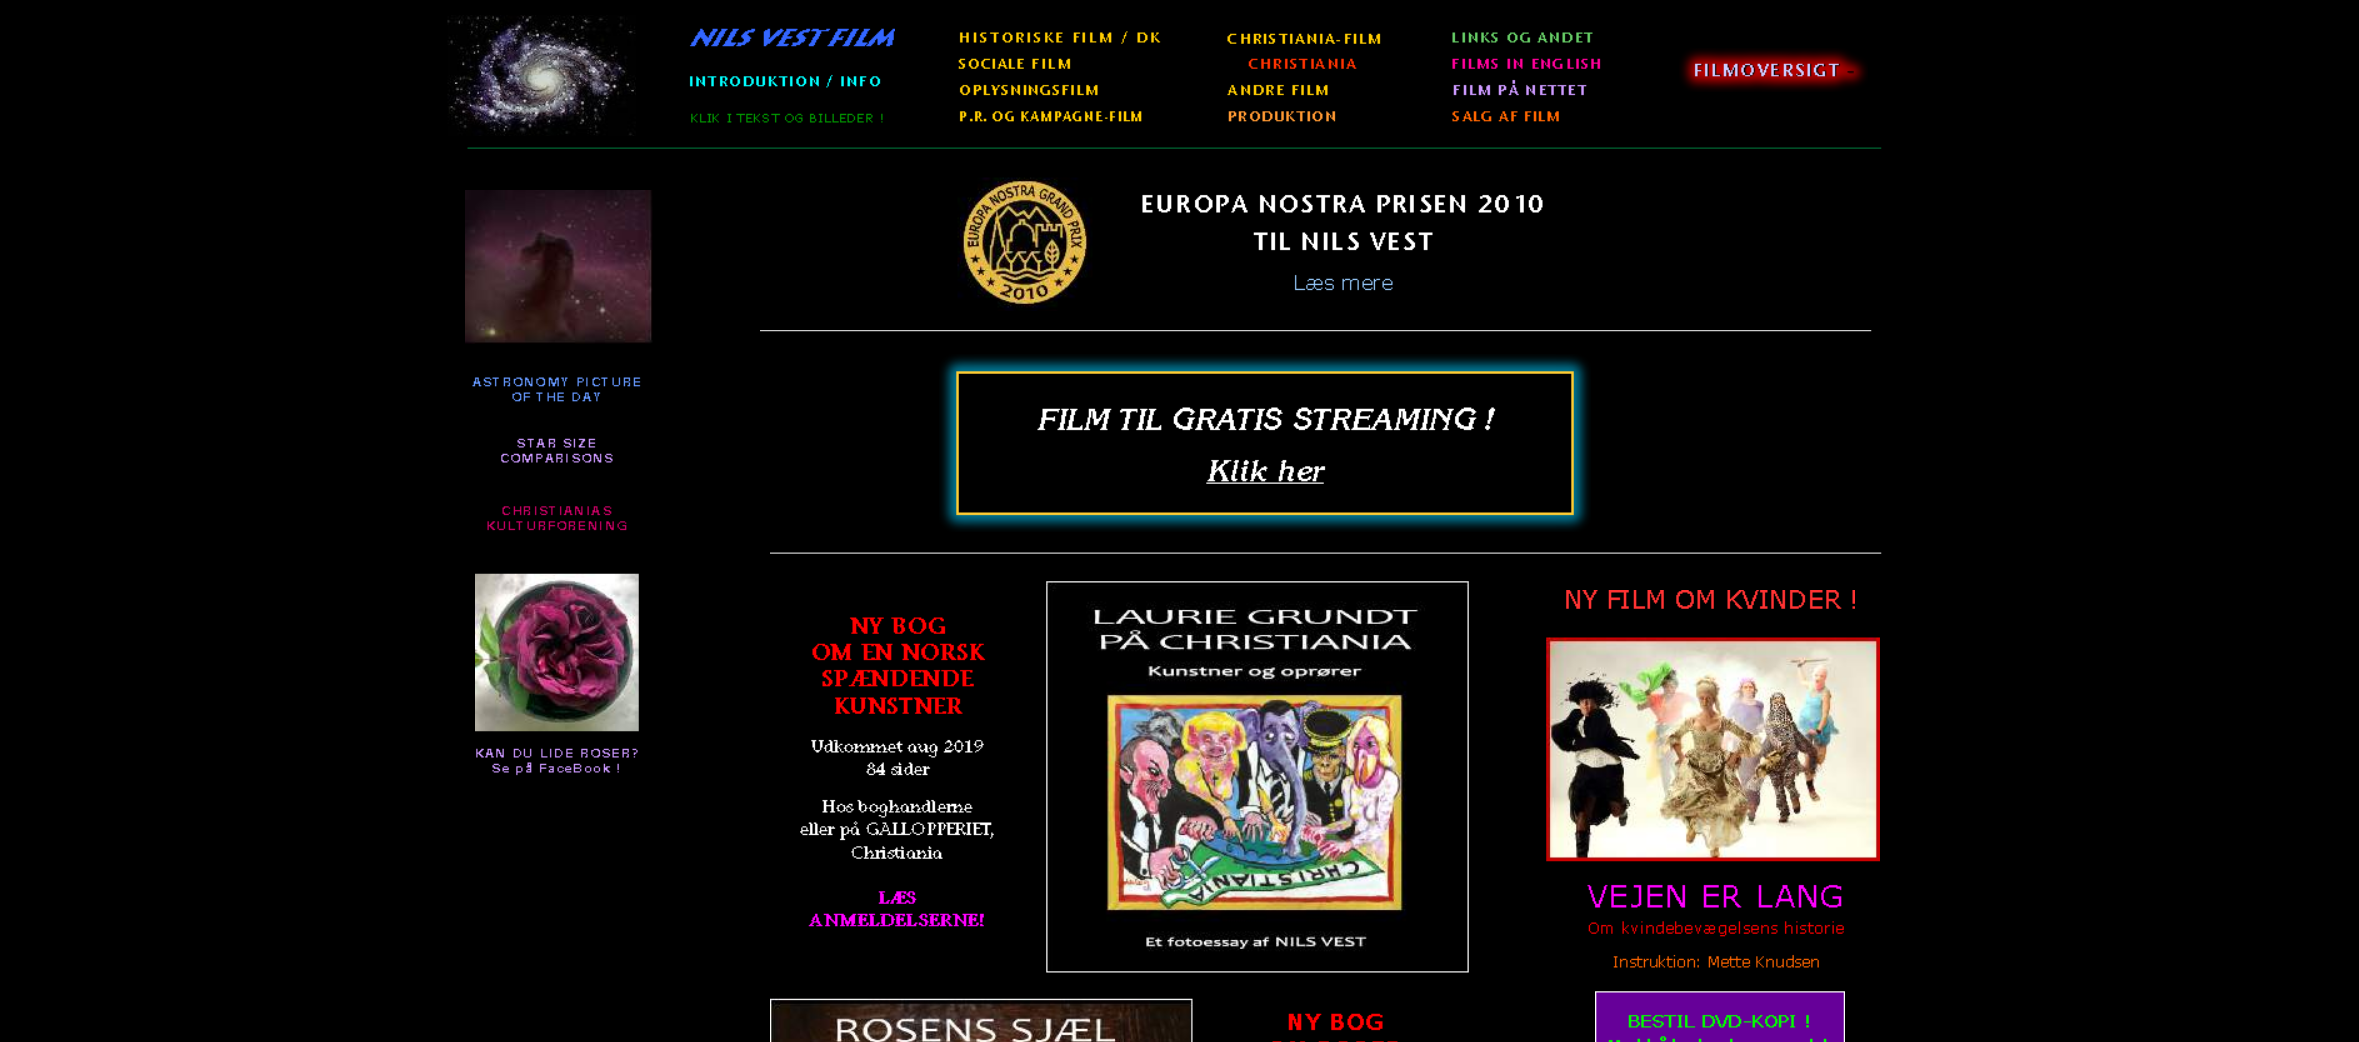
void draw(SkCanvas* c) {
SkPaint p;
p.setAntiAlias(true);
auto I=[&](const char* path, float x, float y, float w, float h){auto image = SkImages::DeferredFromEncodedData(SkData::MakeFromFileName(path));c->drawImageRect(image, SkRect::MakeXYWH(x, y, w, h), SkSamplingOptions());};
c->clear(0xff000000);
I("1.png",447,15,189,121);
I("2.png",689,28,206,19);
I("3.png",959,31,202,13);
I("4.png",1452,32,149,90);
I("5.png",958,58,113,11);
I("6.png",1227,33,154,89);
I("7.png",1679,48,189,44);
I("8.png",689,74,192,14);
I("9.png",959,84,139,12);
I("10.png",691,113,192,10);
I("11.png",959,111,183,11);
I("12.png",467,147,1415,2);
I("13.png",465,190,188,154);
I("14.png",957,177,136,134);
I("15.png",1142,194,401,97);
I("16.png",760,330,1112,2);
I("17.png",472,377,169,25);
I("18.png",939,354,652,178);
I("19.png",501,438,112,25);
I("20.png",487,506,140,25);
I("21.png",770,552,1112,2);
I("22.png",475,573,164,159);
I("23.png",1046,581,423,392);
I("24.png",1566,590,289,19);
I("25.png",476,748,162,28);
I("26.png",1546,637,334,225);
I("27.png",800,617,194,310);
I("28.png",1587,884,257,84);
I("29.png",770,998,423,44);
I("30.png",1272,1013,126,29);
I("31.png",1595,991,250,51);
}
